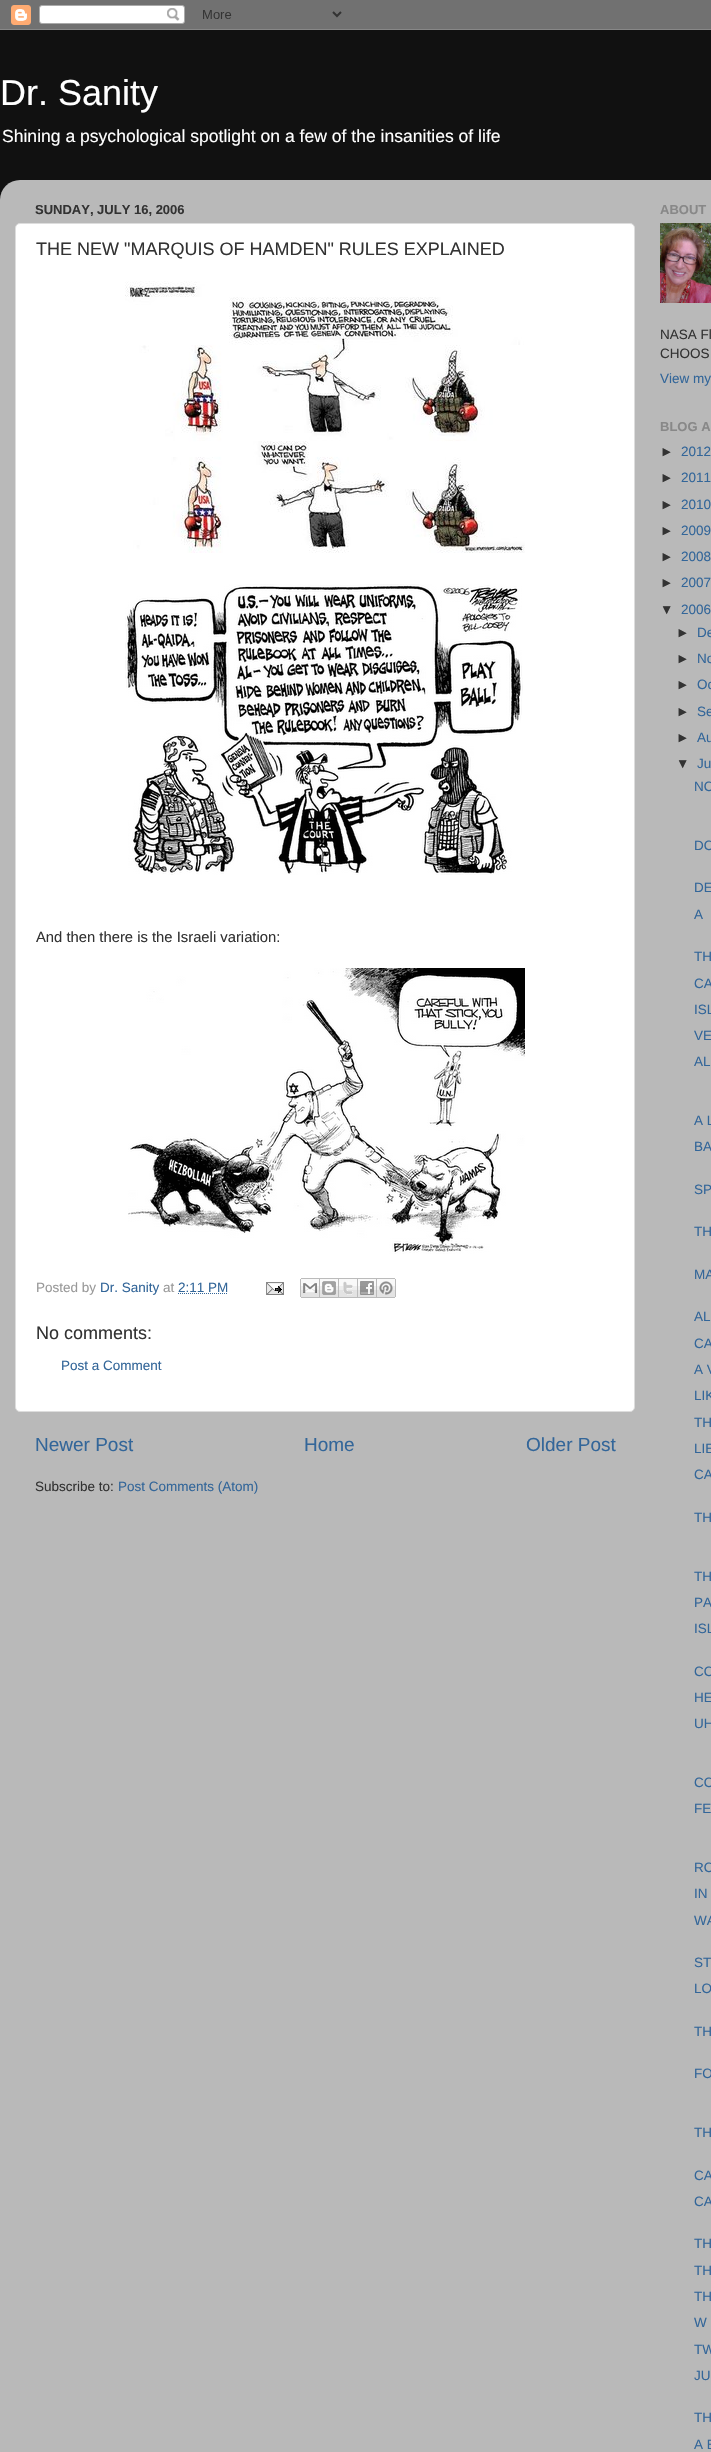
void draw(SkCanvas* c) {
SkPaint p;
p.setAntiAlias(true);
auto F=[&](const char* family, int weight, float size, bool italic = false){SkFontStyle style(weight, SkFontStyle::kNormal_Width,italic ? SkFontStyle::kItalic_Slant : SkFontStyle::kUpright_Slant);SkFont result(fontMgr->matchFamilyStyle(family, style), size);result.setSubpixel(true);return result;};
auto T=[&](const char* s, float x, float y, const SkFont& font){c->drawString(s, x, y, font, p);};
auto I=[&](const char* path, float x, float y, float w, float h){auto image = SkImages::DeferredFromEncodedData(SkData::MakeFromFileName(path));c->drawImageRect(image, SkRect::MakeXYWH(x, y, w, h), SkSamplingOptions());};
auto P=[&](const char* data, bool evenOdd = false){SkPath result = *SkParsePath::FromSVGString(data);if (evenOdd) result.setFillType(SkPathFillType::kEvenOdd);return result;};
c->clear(0xff111111);
I("1.png",0,0,711,30);
auto f1 = F("Liberation Sans",400,36);
p.setColor(0xffffffff);
T("Dr. Sanity",0,105,f1);
auto f2 = F("Liberation Sans",400,17.55);
T("Shining a psychological spotlight on a few of the insanities of life",2,142,f2);
I("2.png",0,180,711,2272);
auto f3 = F("Liberation Sans",700,13);
p.setColor(0xff333333);
T("SUNDAY, JULY 16, 2006",35,214,f3);
p.setColor(0xffffffff);
c->drawRoundRect(SkRect::MakeXYWH(15.5,223.5,619,1188),4.5,4.5,p);
p.setStroke(true);
p.setStrokeWidth(1);
p.setColor(0xffdddddd);
c->drawRoundRect(SkRect::MakeXYWH(15.5,223.5,619,1188),4.5,4.5,p);
auto f4 = F("Liberation Sans",400,18);
p.setStroke(false);
p.setColor(0xff333333);
T("THE NEW \"MARQUIS OF HAMDEN\" RULES EXPLAINED",36,255,f4);
I("3.png",125,281,400,272);
I("4.png",125,584,398,291);
auto f5 = F("Liberation Sans",400,14.8);
T("And then there is the Israeli variation:",36,942,f5);
I("5.png",128,968,397,286);
auto f6 = F("Liberation Sans",400,13.5);
p.setColor(0xff999999);
T("Posted by",36,1292,f6);
p.setColor(0xff336699);
T("Dr. Sanity",100,1292,f6);
p.setColor(0xff999999);
T("at",163,1292,f6);
p.setColor(0xff336699);
T("2:11 PM",178,1292,f6);
p.setStroke(true);
p.setPathEffect(SkDashPathEffect::Make({{1,1}}, 0));
c->drawPath(P("M178 1293.5h50"),p);
p.setPathEffect(nullptr);
I("6.png",266,1282,18,13);
I("7.png",300,1278,20,20);
I("8.png",320,1278,19,20);
I("9.png",339,1278,19,20);
I("10.png",358,1278,19,20);
I("11.png",377,1278,19,20);
p.setStroke(false);
p.setColor(0xff333333);
T("No comments:",36,1339,f4);
p.setColor(0xff336699);
T("Post a Comment",61,1370,f6);
auto f7 = F("Liberation Sans",400,19);
T("Newer Post",35,1451,f7);
T("Home",304,1451,f7);
T("Older Post",526,1451,f7);
p.setColor(0xff333333);
T("Subscribe to:",35,1491,f6);
p.setColor(0xff336699);
T("Post Comments (Atom)",118,1491,f6);
p.setColor(0xff888888);
T("ABOUT",660,214,f3);
I("12.png",660,223,51,80);
p.setColor(0xff333333);
T("NASA Fl",660,339,f6);
T("CHOOS",660,358,f6);
p.setColor(0xff336699);
T("View my",660,383,f6);
p.setColor(0xff888888);
T("BLOG A",660,431,f3);
p.setColor(0xff333333);
T("►",660,456,f6);
p.setColor(0xff336699);
T("2012",681,456,f6);
p.setColor(0xff333333);
T("►",660,482,f6);
p.setColor(0xff336699);
T("2011",681,482,f6);
p.setColor(0xff333333);
T("►",660,509,f6);
p.setColor(0xff336699);
T("2010",681,509,f6);
p.setColor(0xff333333);
T("►",660,535,f6);
p.setColor(0xff336699);
T("2009",681,535,f6);
p.setColor(0xff333333);
T("►",660,561,f6);
p.setColor(0xff336699);
T("2008",681,561,f6);
p.setColor(0xff333333);
T("►",660,587,f6);
p.setColor(0xff336699);
T("2007",681,587,f6);
p.setColor(0xff333333);
T("▼",660,614,f6);
p.setColor(0xff336699);
T("2006",681,614,f6);
p.setColor(0xff333333);
T("►",676,637,f6);
p.setColor(0xff336699);
T("De",697,637,f6);
p.setColor(0xff333333);
T("►",676,663,f6);
p.setColor(0xff336699);
T("No",697,663,f6);
p.setColor(0xff333333);
T("►",676,689,f6);
p.setColor(0xff336699);
T("Oc",697,689,f6);
p.setColor(0xff333333);
T("►",676,716,f6);
p.setColor(0xff336699);
T("Se",697,716,f6);
p.setColor(0xff333333);
T("►",676,742,f6);
p.setColor(0xff336699);
T("Au",697,742,f6);
p.setColor(0xff333333);
T("▼",676,768,f6);
p.setColor(0xff336699);
T("Ju",697,768,f6);
T("NO",694,791,f6);
T("DO",694,850,f6);
T("DE",694,892,f6);
T("A",694,919,f6);
T("TH",694,961,f6);
T("CA",694,988,f6);
T("ISL",694,1014,f6);
T("VE",694,1040,f6);
T("AL",694,1066,f6);
T("A L",694,1125,f6);
T("BA",694,1151,f6);
T("SP",694,1194,f6);
T("TH",694,1236,f6);
T("MA",694,1279,f6);
T("AL",694,1321,f6);
T("CA",694,1348,f6);
T("A V",694,1374,f6);
T("LIK",694,1400,f6);
T("TH",694,1427,f6);
T("LIE",694,1453,f6);
T("CA",694,1479,f6);
T("TH",694,1522,f6);
T("TH",694,1581,f6);
T("PA",694,1607,f6);
T("ISL",694,1633,f6);
T("CO",694,1676,f6);
T("HE",694,1702,f6);
T("UH",694,1728,f6);
T("CO",694,1787,f6);
T("FE",694,1813,f6);
T("RO",694,1872,f6);
T("IN",694,1898,f6);
T("WA",694,1925,f6);
T("ST",694,1967,f6);
T("LO",694,1993,f6);
T("TH",694,2036,f6);
T("FO",694,2078,f6);
T("TH",694,2137,f6);
T("CA",694,2180,f6);
T("CA",694,2206,f6);
T("TH",694,2248,f6);
T("TH",694,2275,f6);
T("TH",694,2301,f6);
T("W",694,2327,f6);
T("TW",694,2354,f6);
T("JU",694,2380,f6);
T("TH",694,2422,f6);
T("A B",694,2449,f6);
}
